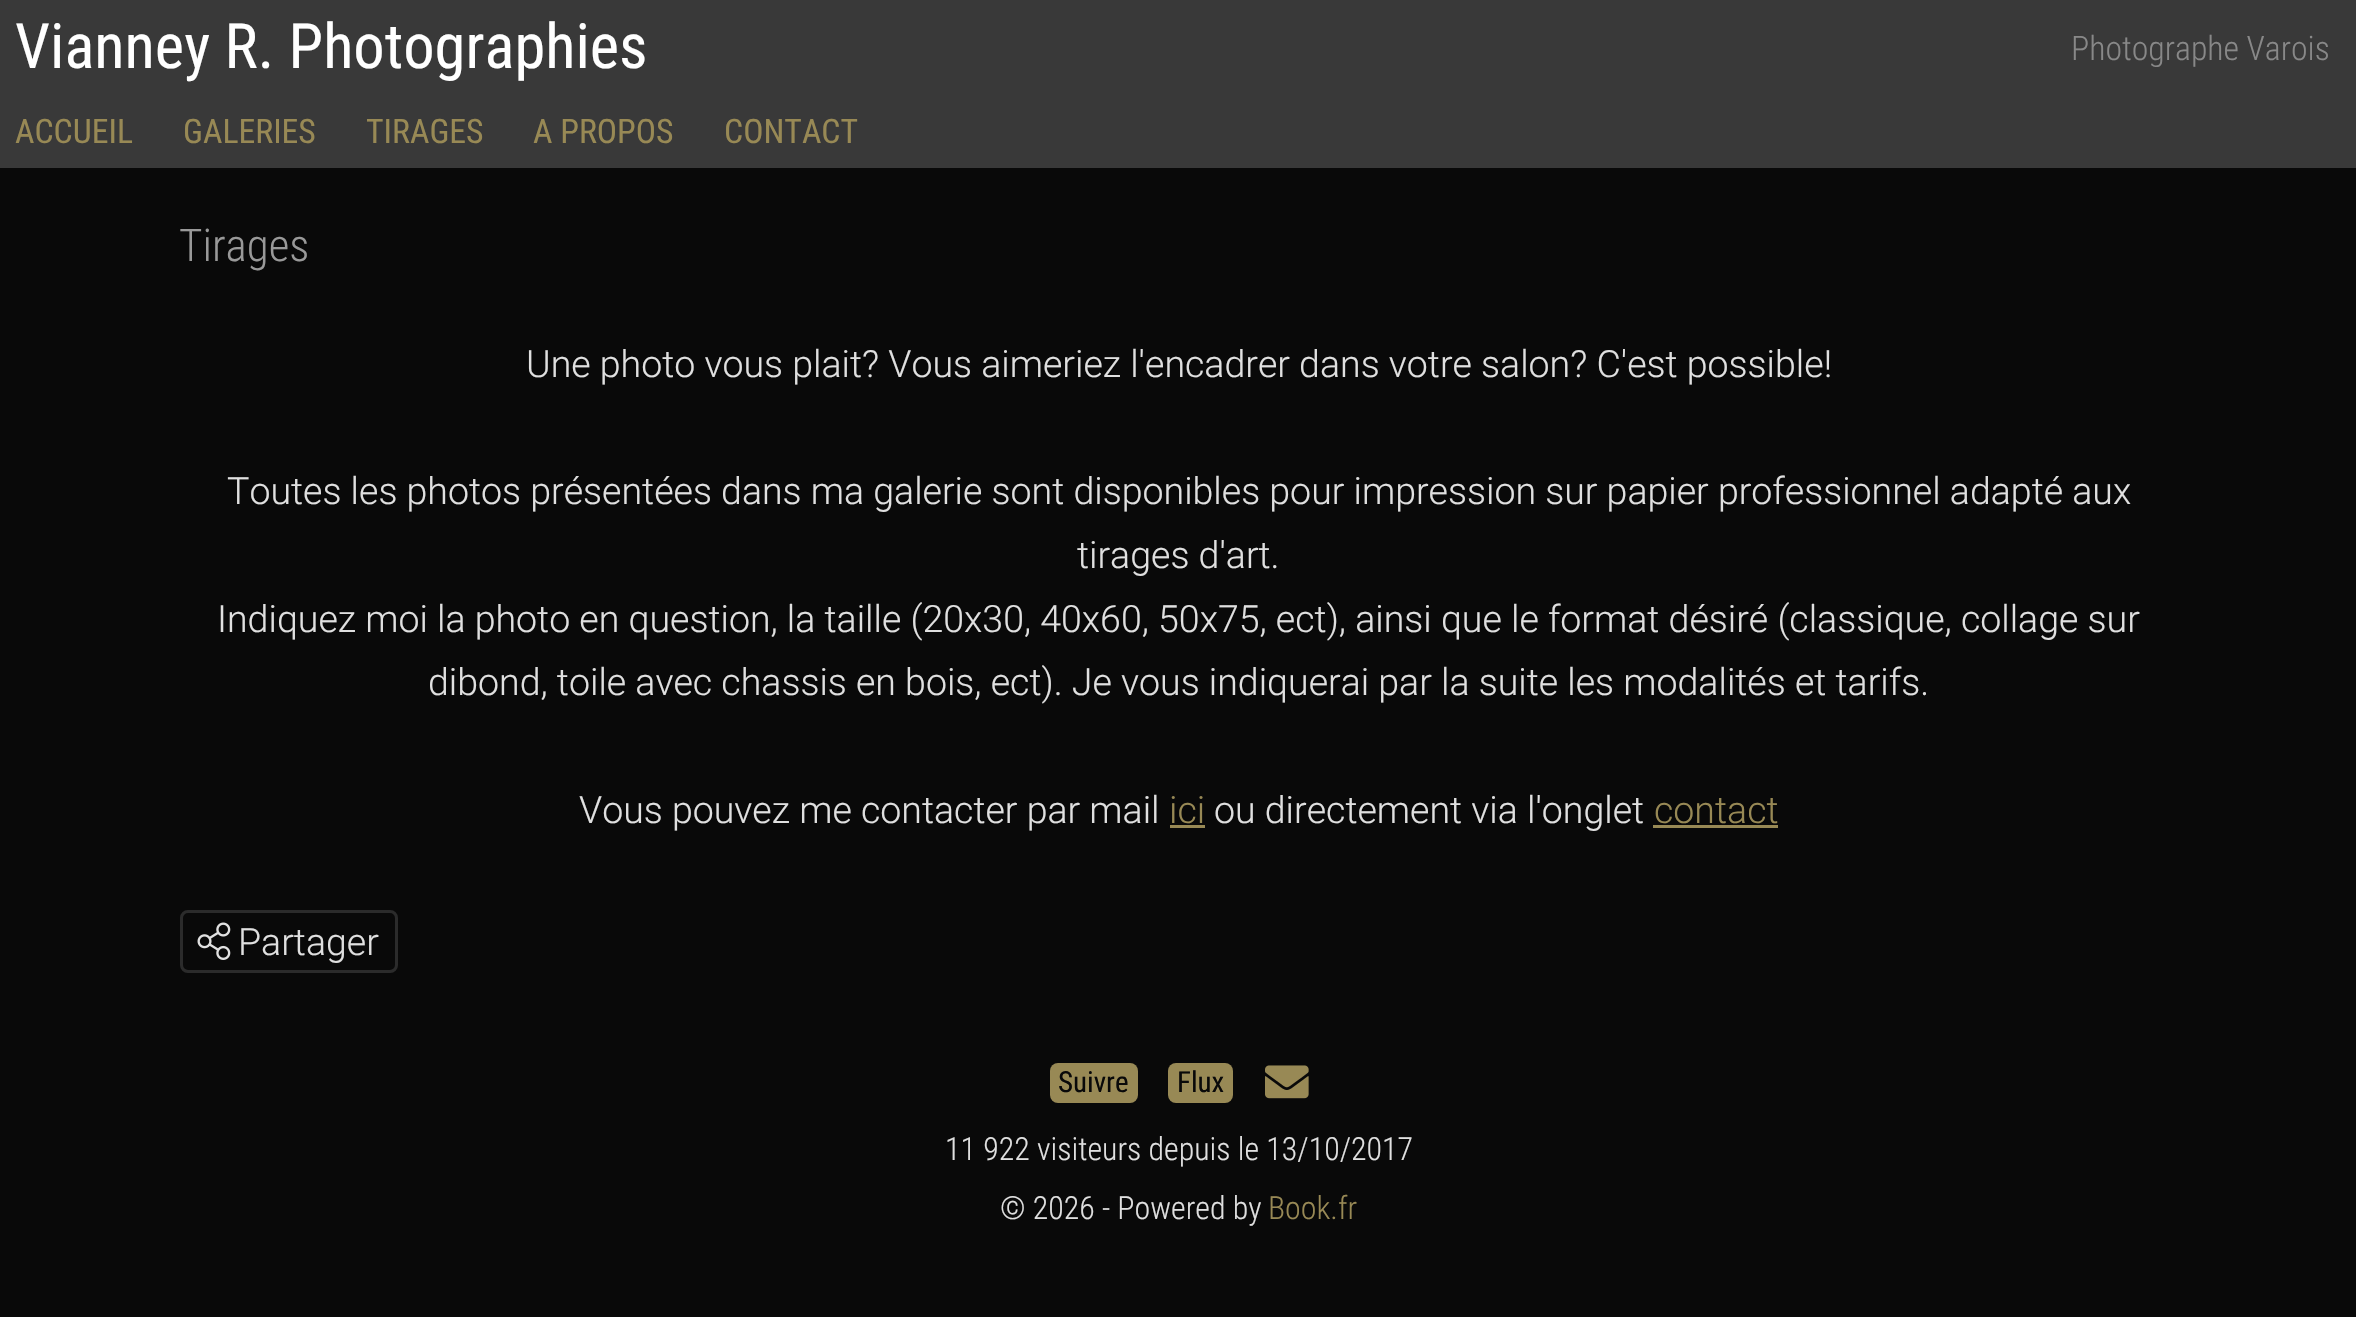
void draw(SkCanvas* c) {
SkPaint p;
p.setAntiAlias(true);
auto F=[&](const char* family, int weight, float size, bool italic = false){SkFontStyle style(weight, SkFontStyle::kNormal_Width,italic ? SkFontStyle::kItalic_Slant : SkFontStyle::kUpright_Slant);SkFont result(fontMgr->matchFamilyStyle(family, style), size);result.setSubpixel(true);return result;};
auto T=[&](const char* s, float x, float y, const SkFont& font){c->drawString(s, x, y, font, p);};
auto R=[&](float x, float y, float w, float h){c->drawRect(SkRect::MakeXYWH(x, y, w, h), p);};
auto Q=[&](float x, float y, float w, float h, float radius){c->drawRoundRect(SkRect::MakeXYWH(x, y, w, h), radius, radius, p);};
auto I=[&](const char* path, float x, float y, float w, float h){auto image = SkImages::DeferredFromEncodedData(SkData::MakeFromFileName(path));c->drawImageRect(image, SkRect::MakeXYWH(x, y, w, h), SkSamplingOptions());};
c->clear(0xff090909);
p.setColor(0xff393939);
R(0,0,2356,168);
auto f1 = F("Roboto Condensed",400,62.5);
p.setColor(0xffffffff);
T("Vianney R. Photographies",15,68,f1);
auto f2 = F("Roboto Condensed",300,33.75);
p.setColor(0xff888888);
T("Photographe Varois",2071,60,f2);
auto f3 = F("Roboto Condensed",400,33.75);
p.setColor(0xff988955);
T("ACCUEIL",15,143,f3);
T("GALERIES",183,143,f3);
T("TIRAGES",366,143,f3);
T("A PROPOS",533,143,f3);
T("CONTACT",724,143,f3);
auto f4 = F("Roboto Condensed",300,45);
p.setColor(0xff999999);
T("Tirages",179,261,f4);
auto f5 = F("Roboto",300,37.5);
p.setColor(0xffe0e0e0);
T("Une photo vous plait? Vous aimeriez l'encadrer dans votre salon? C'est possible!",526,377,f5);
T("Toutes les photos présentées dans ma galerie sont disponibles pour impression sur papier professionnel adapté aux",227,504,f5);
T("tirages d'art.",1077,568,f5);
T("Indiquez moi la photo en question, la taille (20x30, 40x60, 50x75, ect), ainsi que le format désiré (classique, collage sur",217,632,f5);
T("dibond, toile avec chassis en bois, ect). Je vous indiquerai par la suite les modalités et tarifs.",428,695,f5);
T("Vous pouvez me contacter par mail",579,823,f5);
p.setColor(0xff988955);
T("ici",1169,823,f5);
R(1170,825,35,3);
p.setColor(0xffe0e0e0);
T("ou directement via l'onglet",1214,823,f5);
p.setColor(0xff988955);
T("contact",1654,823,f5);
R(1653,825,125,3);
p.setStroke(true);
p.setStrokeWidth(3);
p.setColor(0xff2b2b2b);
c->drawRoundRect(SkRect::MakeXYWH(181.5,911.5,215,60),6.5,6.5,p);
I("1.png",197,922,34,38);
p.setStroke(false);
p.setColor(0xffe0e0e0);
T("Partager",238,955,f5);
p.setColor(0xff988955);
Q(1050,1063,88,40,8);
auto f6 = F("Roboto Condensed",400,29);
p.setColor(0xff090909);
T("Suivre",1058,1092,f6);
p.setColor(0xff988955);
Q(1168,1063,65,40,8);
p.setColor(0xff090909);
T("Flux",1177,1092,f6);
I("2.png",1265,1065,44,34);
auto f7 = F("Roboto Condensed",300,31.9);
p.setColor(0xffe0e0e0);
T("11 922 visiteurs depuis le 13/10/2017",945,1160,f7);
T("© 2026 - Powered by",1000,1219,f7);
p.setColor(0xff988955);
T("Book.fr",1268,1219,f7);
}
